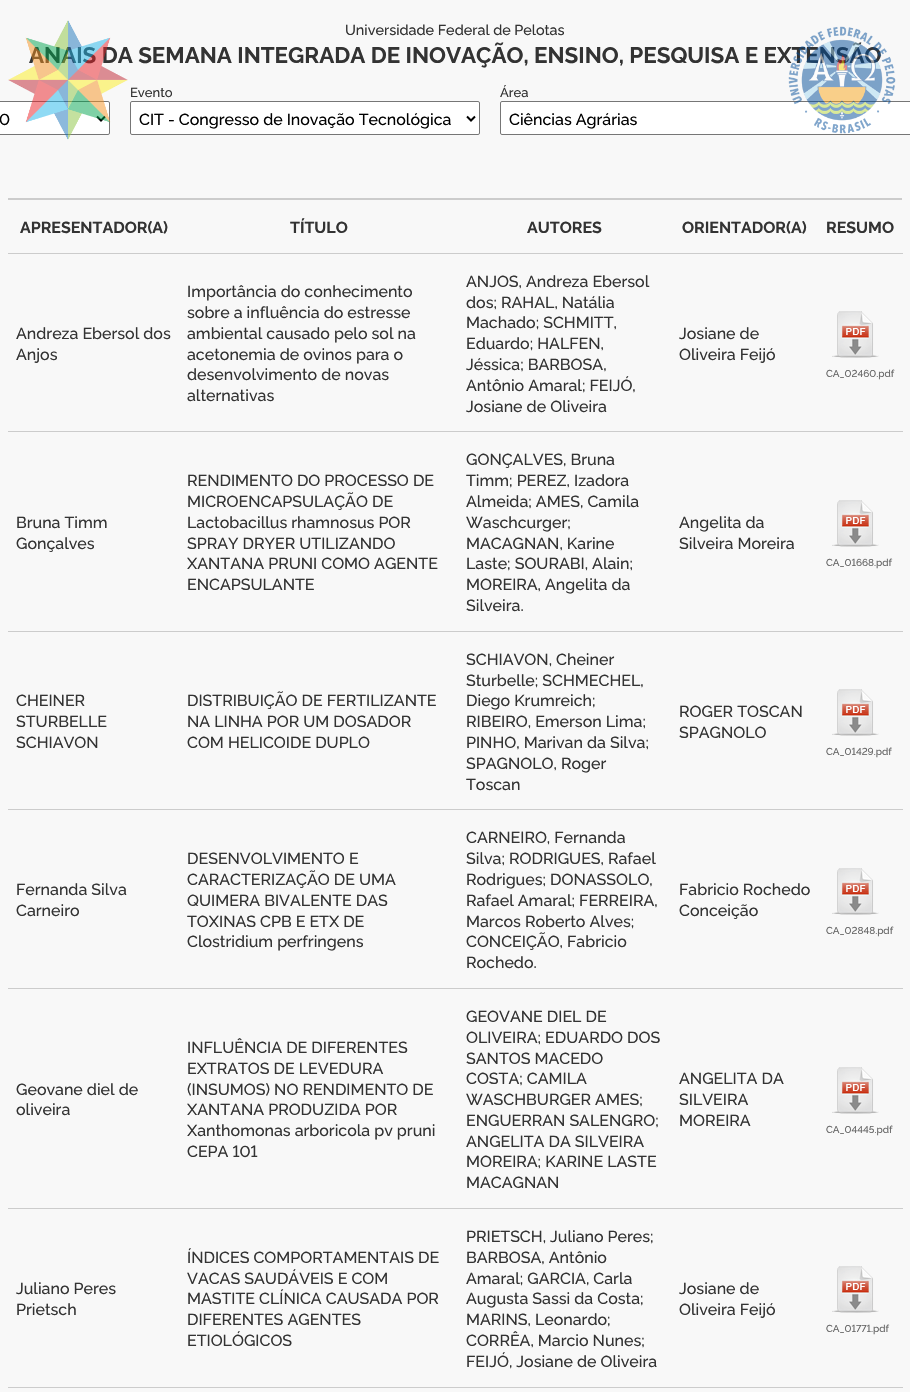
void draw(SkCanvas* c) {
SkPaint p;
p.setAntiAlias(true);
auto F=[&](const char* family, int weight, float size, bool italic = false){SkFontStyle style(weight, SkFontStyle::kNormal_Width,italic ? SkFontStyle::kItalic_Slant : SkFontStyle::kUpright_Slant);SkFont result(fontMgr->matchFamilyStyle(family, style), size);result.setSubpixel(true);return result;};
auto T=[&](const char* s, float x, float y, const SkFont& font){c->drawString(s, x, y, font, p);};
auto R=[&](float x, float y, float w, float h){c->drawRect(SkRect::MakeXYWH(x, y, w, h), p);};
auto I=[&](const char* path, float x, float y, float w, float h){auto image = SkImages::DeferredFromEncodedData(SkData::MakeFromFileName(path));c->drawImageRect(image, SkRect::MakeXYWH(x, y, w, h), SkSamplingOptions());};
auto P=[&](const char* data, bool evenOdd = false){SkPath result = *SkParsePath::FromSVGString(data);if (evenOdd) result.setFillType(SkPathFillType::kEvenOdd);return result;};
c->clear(0xfff8f8f8);
p.setColor(0xffcccccc);
R(8,198,894,2);
auto f1 = F("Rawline",700,22.4);
p.setColor(0xff333333);
T("ANAIS DA SEMANA INTEGRADA DE INOVAÇÃO, ENSINO, PESQUISA E EXTENSÃO",29,63,f1);
p.setColor(0xffffffff);
c->drawRoundRect(SkRect::MakeXYWH(-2.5,101.5,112,33),1.5,1.5,p);
p.setStroke(true);
p.setStrokeWidth(1);
p.setColor(0xff767676);
c->drawRoundRect(SkRect::MakeXYWH(-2.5,101.5,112,33),1.5,1.5,p);
p.setStrokeWidth(2);
p.setColor(0xff000000);
c->drawPath(P("M97 116.5l4 4l4-4"),p);
auto f2 = F("Rawline",500,16);
p.setStroke(false);
T("0",-1,125,f2);
I("1.png",8,20,120,120);
auto f3 = F("Rawline",500,14.4);
p.setColor(0xff333333);
T("Universidade Federal de Pelotas",345,35,f3);
p.setColor(0xffffffff);
c->drawRoundRect(SkRect::MakeXYWH(500.5,101.5,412,33),1.5,1.5,p);
p.setStroke(true);
p.setStrokeWidth(1);
p.setColor(0xff767676);
c->drawRoundRect(SkRect::MakeXYWH(500.5,101.5,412,33),1.5,1.5,p);
I("2.png",788,26,108,108);
auto f4 = F("Rawline",500,13);
p.setStroke(false);
p.setColor(0xff333333);
T("Evento",130,97,f4);
p.setColor(0xffffffff);
c->drawRoundRect(SkRect::MakeXYWH(130.5,101.5,349,33),1.5,1.5,p);
p.setStroke(true);
p.setColor(0xff767676);
c->drawRoundRect(SkRect::MakeXYWH(130.5,101.5,349,33),1.5,1.5,p);
p.setStrokeWidth(2);
p.setColor(0xff000000);
c->drawPath(P("M467 116.5l4 4l4-4"),p);
p.setStroke(false);
T("CIT - Congresso de Inovação Tecnológica",139,125,f2);
p.setColor(0xff333333);
T("Área",500,97,f4);
p.setColor(0xff000000);
T("Ciências Agrárias",509,125,f2);
auto f5 = F("Rawline",700,16);
p.setColor(0xff333333);
T("APRESENTADOR(A)",20,233,f5);
T("TÍTULO",290,233,f5);
T("AUTORES",527,233,f5);
T("ORIENTADOR(A)",682,233,f5);
p.setColor(0xffcccccc);
R(8,253,895,1);
p.setColor(0xff333333);
T("RESUMO",826,233,f5);
T("Andreza Ebersol dos",16,339,f2);
T("Anjos",16,360,f2);
T("Importância do conhecimento",187,297,f2);
T("sobre a influência do estresse",187,318,f2);
T("ambiental causado pelo sol na",187,339,f2);
T("acetonemia de ovinos para o",187,360,f2);
T("desenvolvimento de novas",187,380,f2);
T("alternativas",187,401,f2);
T("ANJOS, Andreza Ebersol",466,287,f2);
T("dos; RAHAL, Natália",466,308,f2);
T("Machado; SCHMITT,",466,328,f2);
T("Eduardo; HALFEN,",466,349,f2);
T("Jéssica; BARBOSA,",466,370,f2);
T("Antônio Amaral; FEIJÓ,",466,391,f2);
T("Josiane de Oliveira",466,412,f2);
T("Josiane de",679,339,f2);
T("Oliveira Feijó",679,360,f2);
p.setColor(0xffcccccc);
R(8,431,895,1);
I("3.png",832,311,47,47);
auto f6 = F("Rawline",500,10);
p.setColor(0xff666666);
T("CA_02460.pdf",826,377,f6);
p.setColor(0xff333333);
T("Bruna Timm",16,528,f2);
T("Gonçalves",16,549,f2);
T("RENDIMENTO DO PROCESSO DE",187,486,f2);
T("MICROENCAPSULAÇÃO DE",187,507,f2);
T("Lactobacillus rhamnosus POR",187,528,f2);
T("SPRAY DRYER UTILIZANDO",187,549,f2);
T("XANTANA PRUNI COMO AGENTE",187,569,f2);
T("ENCAPSULANTE",187,590,f2);
T("GONÇALVES, Bruna",466,465,f2);
T("Timm; PEREZ, Izadora",466,486,f2);
T("Almeida; AMES, Camila",466,507,f2);
T("Waschcurger;",466,528,f2);
T("MACAGNAN, Karine",466,549,f2);
T("Laste; SOURABI, Alain;",466,569,f2);
T("MOREIRA, Angelita da",466,590,f2);
T("Silveira.",466,611,f2);
T("Angelita da",679,528,f2);
T("Silveira Moreira",679,549,f2);
p.setColor(0xffcccccc);
R(8,631,895,1);
I("3.png",832,500,47,47);
p.setColor(0xff666666);
T("CA_01668.pdf",826,566,f6);
p.setColor(0xff333333);
T("CHEINER",16,706,f2);
T("STURBELLE",16,727,f2);
T("SCHIAVON",16,748,f2);
T("DISTRIBUIÇÃO DE FERTILIZANTE",187,706,f2);
T("NA LINHA POR UM DOSADOR",187,727,f2);
T("COM HELICOIDE DUPLO",187,748,f2);
T("SCHIAVON, Cheiner",466,665,f2);
T("Sturbelle; SCHMECHEL,",466,686,f2);
T("Diego Krumreich;",466,706,f2);
T("RIBEIRO, Emerson Lima;",466,727,f2);
T("PINHO, Marivan da Silva;",466,748,f2);
T("SPAGNOLO, Roger",466,769,f2);
T("Toscan",466,790,f2);
T("ROGER TOSCAN",679,717,f2);
T("SPAGNOLO",679,738,f2);
p.setColor(0xffcccccc);
R(8,809,895,1);
I("3.png",832,689,47,47);
p.setColor(0xff666666);
T("CA_01429.pdf",826,755,f6);
p.setColor(0xff333333);
T("Fernanda Silva",16,895,f2);
T("Carneiro",16,916,f2);
T("DESENVOLVIMENTO E",187,864,f2);
T("CARACTERIZAÇÃO DE UMA",187,885,f2);
T("QUIMERA BIVALENTE DAS",187,906,f2);
T("TOXINAS CPB E ETX DE",187,927,f2);
T("Clostridium perfringens",187,947,f2);
T("CARNEIRO, Fernanda",466,843,f2);
T("Silva; RODRIGUES, Rafael",466,864,f2);
T("Rodrigues; DONASSOLO,",466,885,f2);
T("Rafael Amaral; FERREIRA,",466,906,f2);
T("Marcos Roberto Alves;",466,927,f2);
T("CONCEIÇÃO, Fabricio",466,947,f2);
T("Rochedo.",466,968,f2);
T("Fabricio Rochedo",679,895,f2);
T("Conceição",679,916,f2);
p.setColor(0xffcccccc);
R(8,988,895,1);
I("3.png",832,868,47,47);
p.setColor(0xff666666);
T("CA_02848.pdf",826,934,f6);
p.setColor(0xff333333);
T("Geovane diel de",16,1095,f2);
T("oliveira",16,1115,f2);
T("INFLUÊNCIA DE DIFERENTES",187,1053,f2);
T("EXTRATOS DE LEVEDURA",187,1074,f2);
T("(INSUMOS) NO RENDIMENTO DE",187,1095,f2);
T("XANTANA PRODUZIDA POR",187,1115,f2);
T("Xanthomonas arboricola pv pruni",187,1136,f2);
T("CEPA 101",187,1157,f2);
T("GEOVANE DIEL DE",466,1022,f2);
T("OLIVEIRA; EDUARDO DOS",466,1043,f2);
T("SANTOS MACEDO",466,1064,f2);
T("COSTA; CAMILA",466,1084,f2);
T("WASCHBURGER AMES;",466,1105,f2);
T("ENGUERRAN SALENGRO;",466,1126,f2);
T("ANGELITA DA SILVEIRA",466,1147,f2);
T("MOREIRA; KARINE LASTE",466,1167,f2);
T("MACAGNAN",466,1188,f2);
T("ANGELITA DA",679,1084,f2);
T("SILVEIRA",679,1105,f2);
T("MOREIRA",679,1126,f2);
p.setColor(0xffcccccc);
R(8,1208,895,1);
I("3.png",832,1067,47,47);
p.setColor(0xff666666);
T("CA_04445.pdf",826,1133,f6);
p.setColor(0xff333333);
T("Juliano Peres",16,1294,f2);
T("Prietsch",16,1315,f2);
T("ÍNDICES COMPORTAMENTAIS DE",187,1263,f2);
T("VACAS SAUDÁVEIS E COM",187,1284,f2);
T("MASTITE CLÍNICA CAUSADA POR",187,1304,f2);
T("DIFERENTES AGENTES",187,1325,f2);
T("ETIOLÓGICOS",187,1346,f2);
T("PRIETSCH, Juliano Peres;",466,1242,f2);
T("BARBOSA, Antônio",466,1263,f2);
T("Amaral; GARCIA, Carla",466,1284,f2);
T("Augusta Sassi da Costa;",466,1304,f2);
T("MARINS, Leonardo;",466,1325,f2);
T("CORRÊA, Marcio Nunes;",466,1346,f2);
T("FEIJÓ, Josiane de Oliveira",466,1367,f2);
T("Josiane de",679,1294,f2);
T("Oliveira Feijó",679,1315,f2);
p.setColor(0xffcccccc);
R(8,1387,895,1);
I("3.png",832,1266,47,47);
p.setColor(0xff666666);
T("CA_01771.pdf",826,1332,f6);
}
